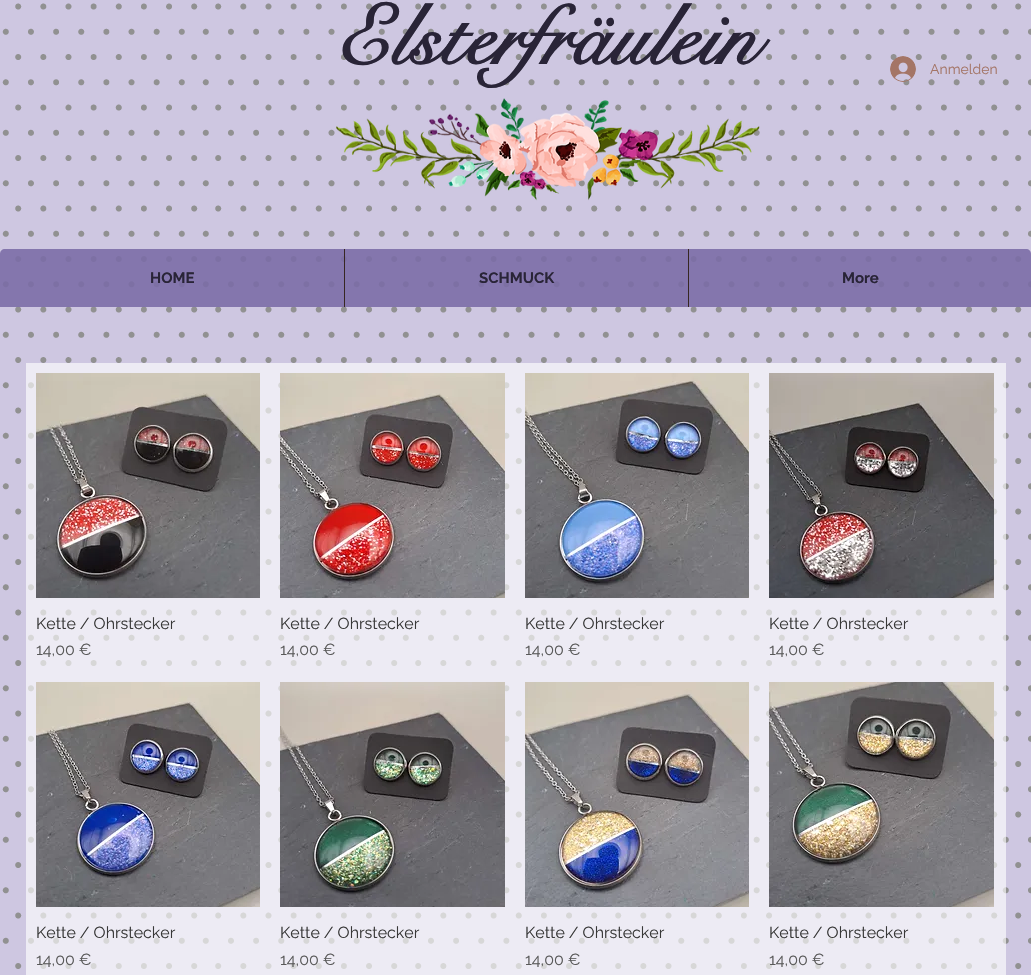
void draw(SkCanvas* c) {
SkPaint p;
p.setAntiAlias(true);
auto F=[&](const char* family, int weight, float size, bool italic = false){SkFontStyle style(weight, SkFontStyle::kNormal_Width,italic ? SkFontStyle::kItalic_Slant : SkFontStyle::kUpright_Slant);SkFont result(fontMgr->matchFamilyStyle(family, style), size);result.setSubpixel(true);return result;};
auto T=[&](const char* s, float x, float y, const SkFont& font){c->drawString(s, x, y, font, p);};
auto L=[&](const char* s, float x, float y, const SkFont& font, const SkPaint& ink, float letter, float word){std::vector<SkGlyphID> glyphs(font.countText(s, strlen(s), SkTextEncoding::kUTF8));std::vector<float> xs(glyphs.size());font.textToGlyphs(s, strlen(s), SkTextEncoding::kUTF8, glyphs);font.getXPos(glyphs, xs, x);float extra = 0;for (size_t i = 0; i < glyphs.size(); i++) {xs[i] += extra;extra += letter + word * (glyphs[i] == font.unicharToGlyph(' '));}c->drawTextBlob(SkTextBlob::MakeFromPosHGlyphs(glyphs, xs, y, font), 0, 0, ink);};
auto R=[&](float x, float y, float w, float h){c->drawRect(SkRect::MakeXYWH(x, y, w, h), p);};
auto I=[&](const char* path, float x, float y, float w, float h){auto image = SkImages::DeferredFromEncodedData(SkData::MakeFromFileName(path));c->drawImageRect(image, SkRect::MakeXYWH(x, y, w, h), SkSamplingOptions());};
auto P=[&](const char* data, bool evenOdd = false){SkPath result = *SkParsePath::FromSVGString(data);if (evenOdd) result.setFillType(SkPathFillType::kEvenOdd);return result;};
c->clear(0xffcec7e1);
I("1.png",2,3,1029,966);
auto f1 = F("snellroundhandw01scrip",700,84);
p.setColor(0xff292437);
L("Elsterfräulein",335,64,f1,p,1.25,0);
I("2.png",890,56,26,26);
auto f2 = F("Raleway",400,14);
p.setColor(0xffa47566);
T("Anmelden",930,74,f2);
I("3.png",336,98,424,103);
p.setColor(0xe37b6ca6);
c->drawPath(P("M5 249h1021c3 0 5 2 5 5v53h-1031v-53c0-3 2-5 5-5z"),p);
auto f3 = F("Raleway",700,15);
p.setColor(0xff292437);
T("HOME",150,283,f3);
p.setColor(0xff372722);
R(344,249,1,58);
p.setColor(0xff292437);
T("SCHMUCK",479,283,f3);
p.setColor(0xff372722);
R(688,249,1,58);
p.setColor(0xff292437);
T("More",842,283,f3);
p.setColor(0xa1ffffff);
R(26,363,980,612);
I("4.png",36,373,224,225);
auto f4 = F("Raleway",400,16);
p.setColor(0xff383838);
T("Kette / Ohrstecker",36,629,f4);
p.setColor(0xff595959);
T("14,00 €",36,655,f4);
I("5.png",280,373,225,225);
p.setColor(0xff383838);
T("Kette / Ohrstecker",280,629,f4);
p.setColor(0xff595959);
T("14,00 €",280,655,f4);
I("6.png",525,373,224,225);
p.setColor(0xff383838);
T("Kette / Ohrstecker",525,629,f4);
p.setColor(0xff595959);
T("14,00 €",525,655,f4);
I("7.png",769,373,225,225);
p.setColor(0xff383838);
T("Kette / Ohrstecker",769,629,f4);
p.setColor(0xff595959);
T("14,00 €",769,655,f4);
I("8.png",36,682,224,225);
p.setColor(0xff383838);
T("Kette / Ohrstecker",36,938,f4);
p.setColor(0xff595959);
T("14,00 €",36,965,f4);
I("9.png",280,682,225,225);
p.setColor(0xff383838);
T("Kette / Ohrstecker",280,938,f4);
p.setColor(0xff595959);
T("14,00 €",280,965,f4);
I("10.png",525,682,224,225);
p.setColor(0xff383838);
T("Kette / Ohrstecker",525,938,f4);
p.setColor(0xff595959);
T("14,00 €",525,965,f4);
I("11.png",769,682,225,225);
p.setColor(0xff383838);
T("Kette / Ohrstecker",769,938,f4);
p.setColor(0xff595959);
T("14,00 €",769,965,f4);
}
